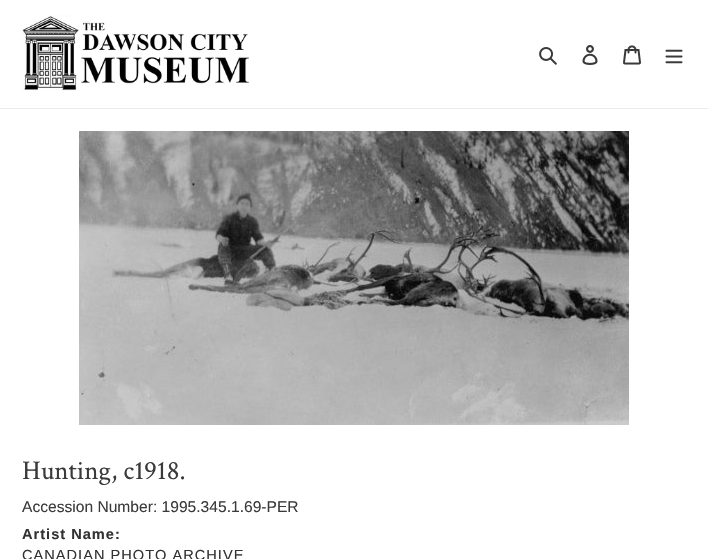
void draw(SkCanvas* c) {
SkPaint p;
p.setAntiAlias(true);
auto F=[&](const char* family, int weight, float size, bool italic = false){SkFontStyle style(weight, SkFontStyle::kNormal_Width,italic ? SkFontStyle::kItalic_Slant : SkFontStyle::kUpright_Slant);SkFont result(fontMgr->matchFamilyStyle(family, style), size);result.setSubpixel(true);return result;};
auto T=[&](const char* s, float x, float y, const SkFont& font){c->drawString(s, x, y, font, p);};
auto L=[&](const char* s, float x, float y, const SkFont& font, const SkPaint& ink, float letter, float word){std::vector<SkGlyphID> glyphs(font.countText(s, strlen(s), SkTextEncoding::kUTF8));std::vector<float> xs(glyphs.size());font.textToGlyphs(s, strlen(s), SkTextEncoding::kUTF8, glyphs);font.getXPos(glyphs, xs, x);float extra = 0;for (size_t i = 0; i < glyphs.size(); i++) {xs[i] += extra;extra += letter + word * (glyphs[i] == font.unicharToGlyph(' '));}c->drawTextBlob(SkTextBlob::MakeFromPosHGlyphs(glyphs, xs, y, font), 0, 0, ink);};
auto R=[&](float x, float y, float w, float h){c->drawRect(SkRect::MakeXYWH(x, y, w, h), p);};
auto I=[&](const char* path, float x, float y, float w, float h){auto image = SkImages::DeferredFromEncodedData(SkData::MakeFromFileName(path));c->drawImageRect(image, SkRect::MakeXYWH(x, y, w, h), SkSamplingOptions());};
c->clear(0xffffffff);
p.setColor(0xffebebeb);
R(0,108,708,1);
I("1.png",22,15,227,76);
I("2.png",539,47,18,18);
I("3.png",582,45,16,20);
I("4.png",623,45,18,20);
I("5.png",665,49,18,15);
I("6.png",79,131,550,294);
auto f1 = F("Crimson Text",400,27);
p.setColor(0xff3a3a3a);
T("Hunting, c1918.",22,479,f1);
auto f2 = F("Liberation Sans",400,15.6);
T("Accession Number: 1995.345.1.69-PER",22,512,f2);
auto f3 = F("Liberation Sans",700,14.6);
p.setColor(0xff333232);
L("Artist Name:",22,539,f3,p,1,0);
auto f4 = F("Liberation Sans",400,14.6);
L("CANADIAN PHOTO ARCHIVE",22,560,f4,p,1,0);
}
